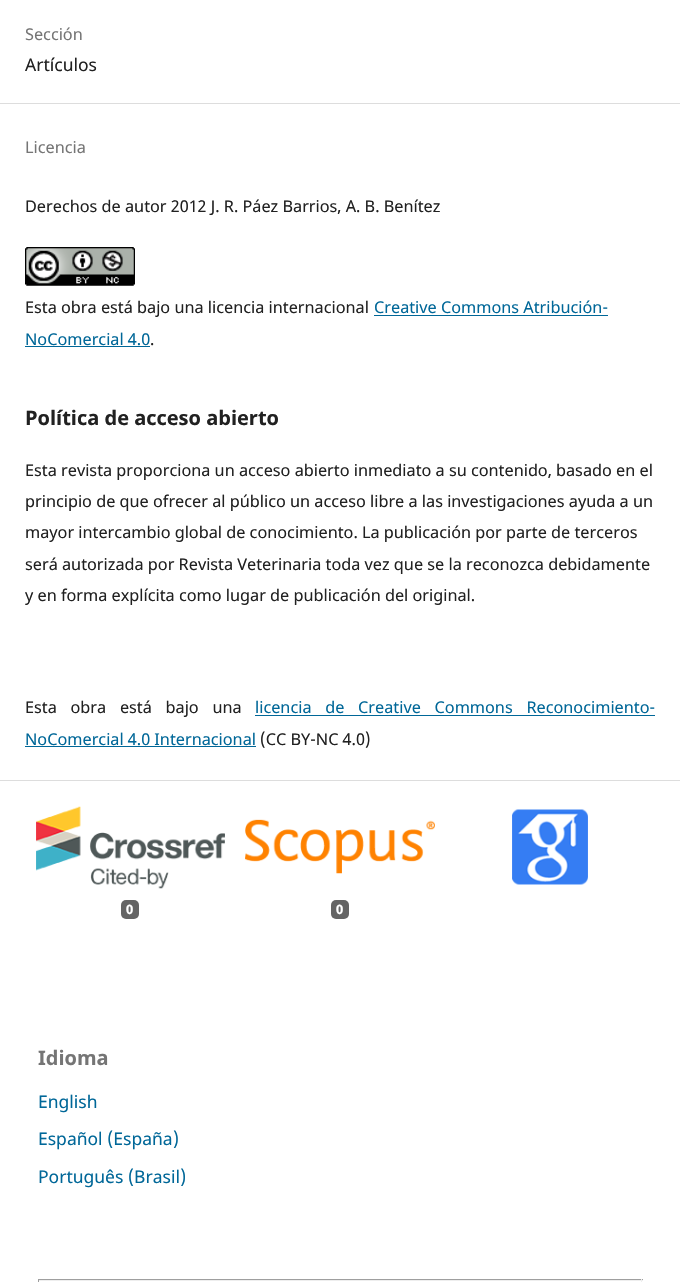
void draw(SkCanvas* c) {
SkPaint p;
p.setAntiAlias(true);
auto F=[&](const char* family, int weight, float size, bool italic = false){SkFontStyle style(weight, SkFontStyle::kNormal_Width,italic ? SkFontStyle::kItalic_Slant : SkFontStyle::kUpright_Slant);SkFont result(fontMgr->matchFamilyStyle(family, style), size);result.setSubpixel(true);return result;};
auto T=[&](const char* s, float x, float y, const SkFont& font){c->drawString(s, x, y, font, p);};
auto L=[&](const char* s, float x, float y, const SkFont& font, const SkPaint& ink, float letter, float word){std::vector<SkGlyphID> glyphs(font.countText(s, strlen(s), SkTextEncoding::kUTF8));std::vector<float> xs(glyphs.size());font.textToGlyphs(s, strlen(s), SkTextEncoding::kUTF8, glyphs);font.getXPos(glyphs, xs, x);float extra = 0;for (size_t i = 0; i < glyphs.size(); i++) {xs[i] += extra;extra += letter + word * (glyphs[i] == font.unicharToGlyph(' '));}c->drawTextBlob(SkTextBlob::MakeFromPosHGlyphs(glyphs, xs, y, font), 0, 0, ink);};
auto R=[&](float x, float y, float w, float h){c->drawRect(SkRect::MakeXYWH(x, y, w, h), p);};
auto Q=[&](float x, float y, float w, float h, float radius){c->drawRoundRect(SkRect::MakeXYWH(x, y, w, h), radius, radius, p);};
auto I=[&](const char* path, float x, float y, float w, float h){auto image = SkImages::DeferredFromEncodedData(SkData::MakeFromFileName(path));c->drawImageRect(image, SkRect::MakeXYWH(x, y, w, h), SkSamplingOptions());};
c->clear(0xffffffff);
p.setColor(0xffdddddd);
R(0,103,680,1);
auto f1 = F("Noto Sans",400,16.25);
p.setColor(0xff757575);
T("Sección",25,40,f1);
auto f2 = F("Noto Sans",400,17.5);
p.setColor(0xff212121);
T("Artículos",25,71,f2);
p.setColor(0xffdddddd);
R(0,780,680,1);
p.setColor(0xff757575);
T("Licencia",25,153,f1);
p.setColor(0xff212121);
T("Derechos de autor 2012 J. R. Páez Barrios, A. B. Benítez",25,212,f1);
I("1.png",25,247,110,39);
T("Esta obra está bajo una licencia internacional",25,313,f1);
p.setColor(0xff006798);
T("Creative Commons Atribución-",374,313,f1);
R(374,315,234,1);
T("NoComercial 4.0",25,345,f1);
R(25,346,125,1);
p.setColor(0xff212121);
T(".",150,345,f1);
auto f3 = F("Noto Sans",700,20);
T("Política de acceso abierto",25,425,f3);
T("Esta revista proporciona un acceso abierto inmediato a su contenido, basado en el",25,476,f1);
T("principio de que ofrecer al público un acceso libre a las investigaciones ayuda a un",25,507,f1);
T("mayor intercambio global de conocimiento. La publicación por parte de terceros",25,538,f1);
T("será autorizada por Revista Veterinaria toda vez que se la reconozca debidamente",25,570,f1);
T("y en forma explícita como lugar de publicación del original.",25,601,f1);
L("Esta obra está bajo una",25,713,f1,p,0,9.5);
p.setColor(0xff006798);
L("licencia de Creative Commons Reconocimiento-",255,713,f1,p,0,9.5);
R(255,715,400,1);
T("NoComercial 4.0 Internacional",25,745,f1);
R(25,746,231,1);
p.setColor(0xff212121);
T("(CC BY-NC 4.0)",260,745,f1);
I("2.png",512,809,76,76);
I("3.png",36,806,189,83);
p.setColor(0xff646464);
Q(121,900,18,19,5);
auto f4 = F("Noto Sans",700,13);
p.setColor(0xffffffff);
T("0",126,914,f4);
I("4.png",245,819,190,55);
p.setColor(0xff646464);
Q(331,900,18,19,5);
p.setColor(0xffffffff);
T("0",336,914,f4);
p.setColor(0xff757575);
T("Idioma",38,1065,f3);
p.setColor(0xff006798);
T("English",38,1108,f2);
T("Español (España)",38,1145,f2);
T("Português (Brasil)",38,1183,f2);
p.setColor(0xff9f9f9f);
R(38,1279,605,1);
p.setColor(0xffeeeeee);
R(641,1279,1,3);
R(38,1280,605,1);
p.setColor(0xff9f9f9f);
R(38,1279,1,3);
}
